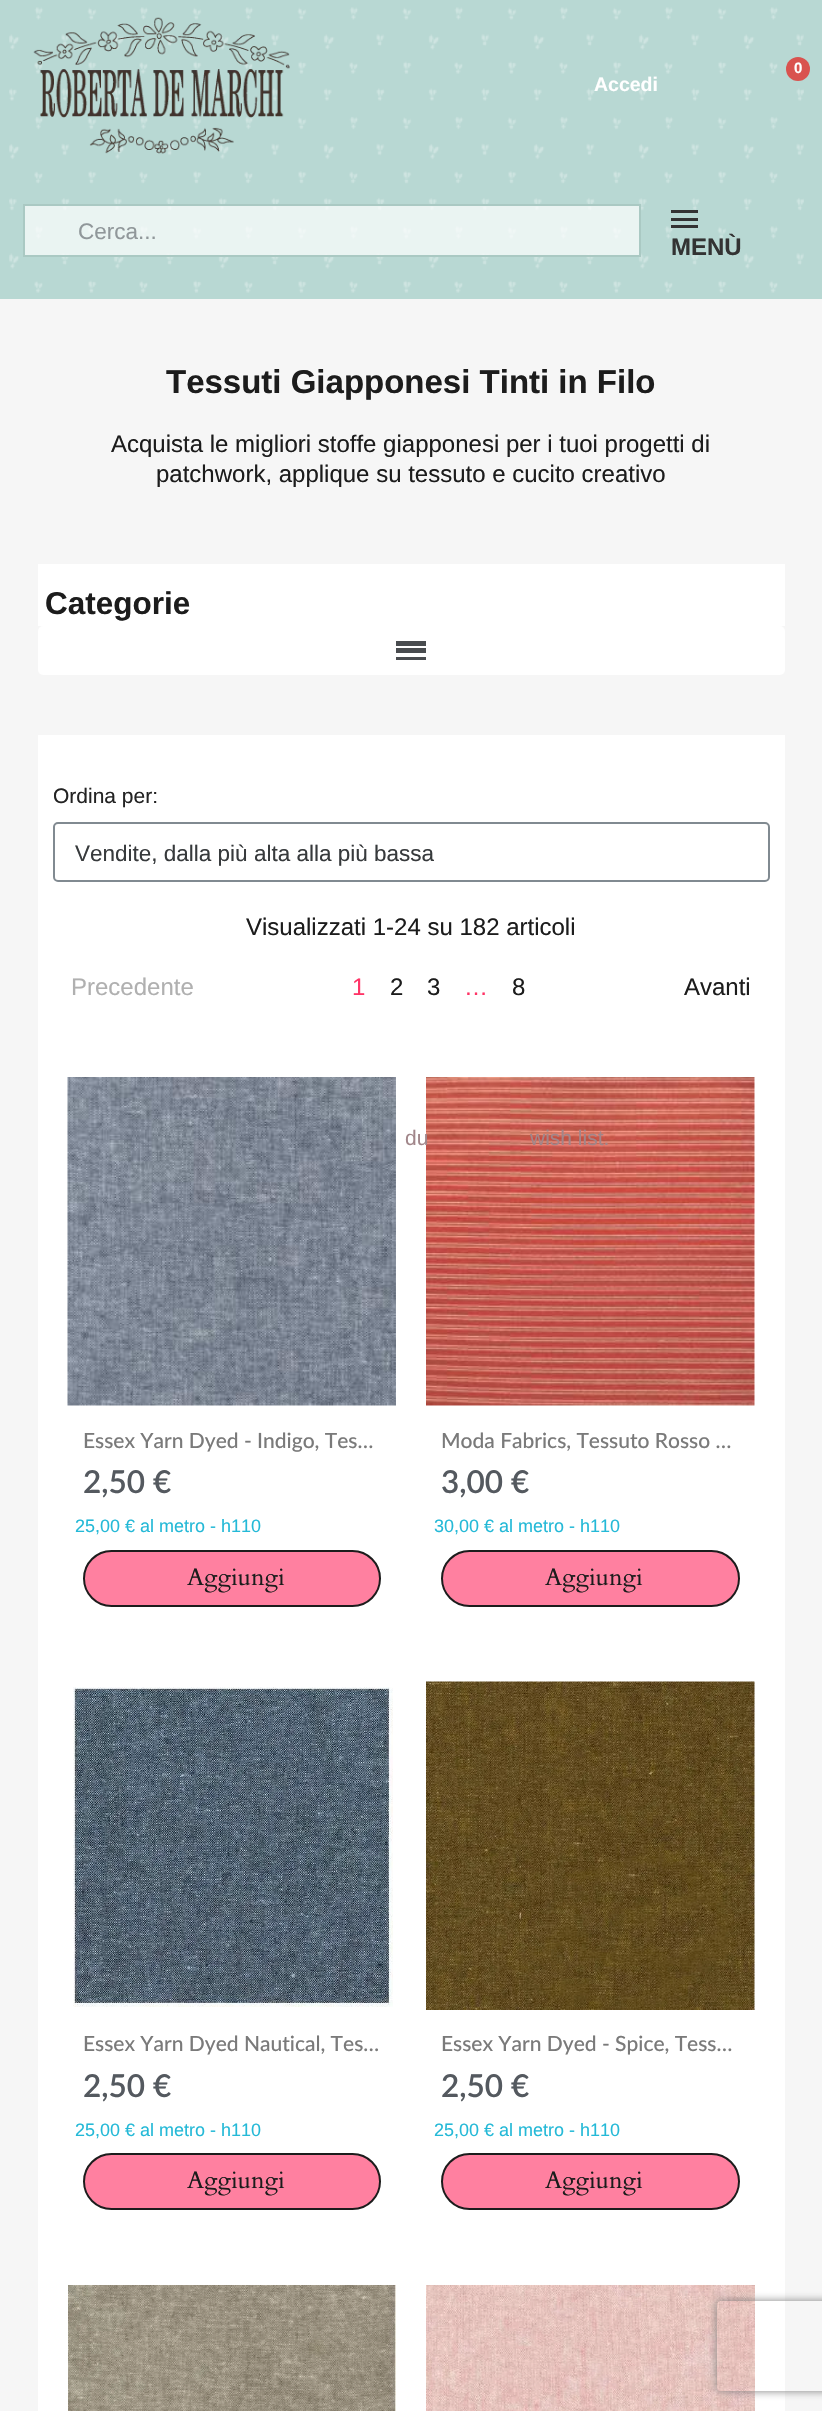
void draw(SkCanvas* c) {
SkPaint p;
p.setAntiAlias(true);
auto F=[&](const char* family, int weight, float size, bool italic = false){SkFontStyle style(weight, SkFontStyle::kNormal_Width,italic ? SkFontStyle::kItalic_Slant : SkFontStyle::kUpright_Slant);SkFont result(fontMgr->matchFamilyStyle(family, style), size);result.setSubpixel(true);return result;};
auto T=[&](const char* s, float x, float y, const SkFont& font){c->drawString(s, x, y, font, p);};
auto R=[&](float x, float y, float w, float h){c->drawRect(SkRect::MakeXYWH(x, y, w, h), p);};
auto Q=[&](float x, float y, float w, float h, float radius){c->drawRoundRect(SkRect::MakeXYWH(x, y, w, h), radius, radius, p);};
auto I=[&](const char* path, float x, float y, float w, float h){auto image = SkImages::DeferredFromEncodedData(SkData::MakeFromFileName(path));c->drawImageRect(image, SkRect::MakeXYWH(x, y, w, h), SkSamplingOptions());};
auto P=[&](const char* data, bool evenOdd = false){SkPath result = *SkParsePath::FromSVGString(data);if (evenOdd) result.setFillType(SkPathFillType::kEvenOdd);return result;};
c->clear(0xfff6f6f6);
p.setColor(0xffb8d8d3);
R(0,0,822,299);
I("1.png",9,7,795,286);
I("2.png",33,17,257,137);
p.setColor(0xffd9534f);
c->drawCircle(798,69,12,p);
auto f1 = F("Liberation Sans",700,15);
p.setColor(0xffffffff);
T("0",794,73,f1);
auto f2 = F("Liberation Sans",700,19.5);
T("Accedi",594,91,f2);
p.setColor(0xb3ffffff);
c->drawRect(SkRect::MakeXYWH(24,205,616,51),p);
p.setStroke(true);
p.setStrokeWidth(2);
p.setColor(0xffaac9c3);
c->drawRect(SkRect::MakeXYWH(24,205,616,51),p);
auto f3 = F("Liberation Sans",400,22.5);
p.setStroke(false);
p.setColor(0xff90979a);
T("Cerca...",78,239,f3);
p.setColor(0xff333333);
R(671,210,27,3);
R(671,218,27,3);
R(671,225,27,3);
auto f4 = F("Liberation Sans",700,24);
T("MENÙ",671,255,f4);
auto f5 = F("Liberation Sans",700,33);
p.setColor(0xff1c1c1c);
T("Tessuti Giapponesi Tinti in Filo",166,393,f5);
auto f6 = F("Liberation Sans",400,24);
T("Acquista le migliori stoffe giapponesi per i tuoi progetti di",111,452,f6);
T("patchwork, applique su tessuto e cucito creativo",156,482,f6);
p.setColor(0xffffffff);
R(38,564,747,62);
auto f7 = F("Liberation Sans",700,31.5);
p.setColor(0xff1c1c1c);
T("Categorie",45,614,f7);
p.setColor(0xffffffff);
Q(38,626,747,49,5);
p.setColor(0xff494c4f);
R(396,648,30,5);
R(396,641,30,5);
R(396,657,30,3);
p.setColor(0xffffffff);
R(38,735,747,1676);
auto f8 = F("Liberation Sans",400,21);
p.setColor(0xff232323);
T("Ordina per:",53,803,f8);
p.setStroke(true);
p.setColor(0xff818a91);
c->drawRoundRect(SkRect::MakeXYWH(54,823,715,58),4,4,p);
p.setStroke(false);
p.setColor(0xff373a3c);
T("Vendite, dalla più alta alla più bassa",75,861,f3);
p.setColor(0xff1c1c1c);
T("Visualizzati 1-24 su 182 articoli",246,935,f6);
p.setColor(0xffb0b0b0);
T("Precedente",71,995,f6);
p.setColor(0xffff3366);
T("1",352,995,f6);
p.setColor(0xff1c1c1c);
T("2",390,995,f6);
T("3",427,995,f6);
p.setColor(0xffff3366);
T("…",464,995,f6);
p.setColor(0xff1c1c1c);
T("8",512,995,f6);
T("Avanti",684,995,f6);
I("3.png",67,1077,329,329);
auto f9 = F("Lato",500,21);
p.setColor(0xff7a7a7a);
T("Essex Yarn Dyed - Indigo, Tes…",83,1448,f9);
auto f10 = F("Lato",600,31.5);
p.setColor(0xff54595f);
T("2,50 €",83,1493,f10);
auto f11 = F("Liberation Sans",400,18);
p.setColor(0xff24b9d7);
T("25,00 € al metro - h110",75,1532,f11);
p.setColor(0xffff80a0);
c->drawRoundRect(SkRect::MakeXYWH(84,1551,296,55),27.5,27.5,p);
p.setStroke(true);
p.setColor(0xff1c1c1c);
c->drawRoundRect(SkRect::MakeXYWH(84,1551,296,55),27.5,27.5,p);
auto f12 = F("Cardo",400,24);
p.setStroke(false);
T("Aggiungi",187,1585,f12);
I("4.png",426,1077,329,329);
p.setColor(0xff7a7a7a);
T("Moda Fabrics, Tessuto Rosso …",441,1448,f9);
p.setColor(0xff54595f);
T("3,00 €",441,1493,f10);
p.setColor(0xff24b9d7);
T("30,00 € al metro - h110",434,1532,f11);
p.setColor(0xffff80a0);
c->drawRoundRect(SkRect::MakeXYWH(442,1551,297,55),27.5,27.5,p);
p.setStroke(true);
p.setColor(0xff1c1c1c);
c->drawRoundRect(SkRect::MakeXYWH(442,1551,297,55),27.5,27.5,p);
p.setStroke(false);
T("Aggiungi",545,1585,f12);
I("5.png",73,1687,320,320);
p.setColor(0xff7a7a7a);
T("Essex Yarn Dyed Nautical, Tes…",83,2051,f9);
p.setColor(0xff54595f);
T("2,50 €",83,2097,f10);
p.setColor(0xff24b9d7);
T("25,00 € al metro - h110",75,2136,f11);
p.setColor(0xffff80a0);
c->drawRoundRect(SkRect::MakeXYWH(84,2154,296,55),27.5,27.5,p);
p.setStroke(true);
p.setColor(0xff1c1c1c);
c->drawRoundRect(SkRect::MakeXYWH(84,2154,296,55),27.5,27.5,p);
p.setStroke(false);
T("Aggiungi",187,2188,f12);
I("6.png",426,1681,329,329);
p.setColor(0xff7a7a7a);
T("Essex Yarn Dyed - Spice, Tess…",441,2051,f9);
p.setColor(0xff54595f);
T("2,50 €",441,2097,f10);
p.setColor(0xff24b9d7);
T("25,00 € al metro - h110",434,2136,f11);
p.setColor(0xffff80a0);
c->drawRoundRect(SkRect::MakeXYWH(442,2154,297,55),27.5,27.5,p);
p.setStroke(true);
p.setColor(0xff1c1c1c);
c->drawRoundRect(SkRect::MakeXYWH(442,2154,297,55),27.5,27.5,p);
p.setStroke(false);
T("Aggiungi",545,2188,f12);
I("7.png",68,2285,328,126);
I("8.png",426,2285,329,126);
p.setColor(0xffa1868a);
T("du",405,1145,f8);
T("wish list.",530,1145,f8);
c->save();
c->clipPath(P("M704 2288h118v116h-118zm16 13h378c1.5 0 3 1.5 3 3v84c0 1.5-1.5 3-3 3h-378c-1.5 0-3-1.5-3-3v-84c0-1.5 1.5-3 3-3z",true),true);
p.setColor(0xff808080);
p.setMaskFilter(SkMaskFilter::MakeBlur(kNormal_SkBlurStyle, 4));
c->drawRoundRect(SkRect::MakeXYWH(717,2301,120,90),3,3,p);
p.setMaskFilter(nullptr);
c->restore();
}
